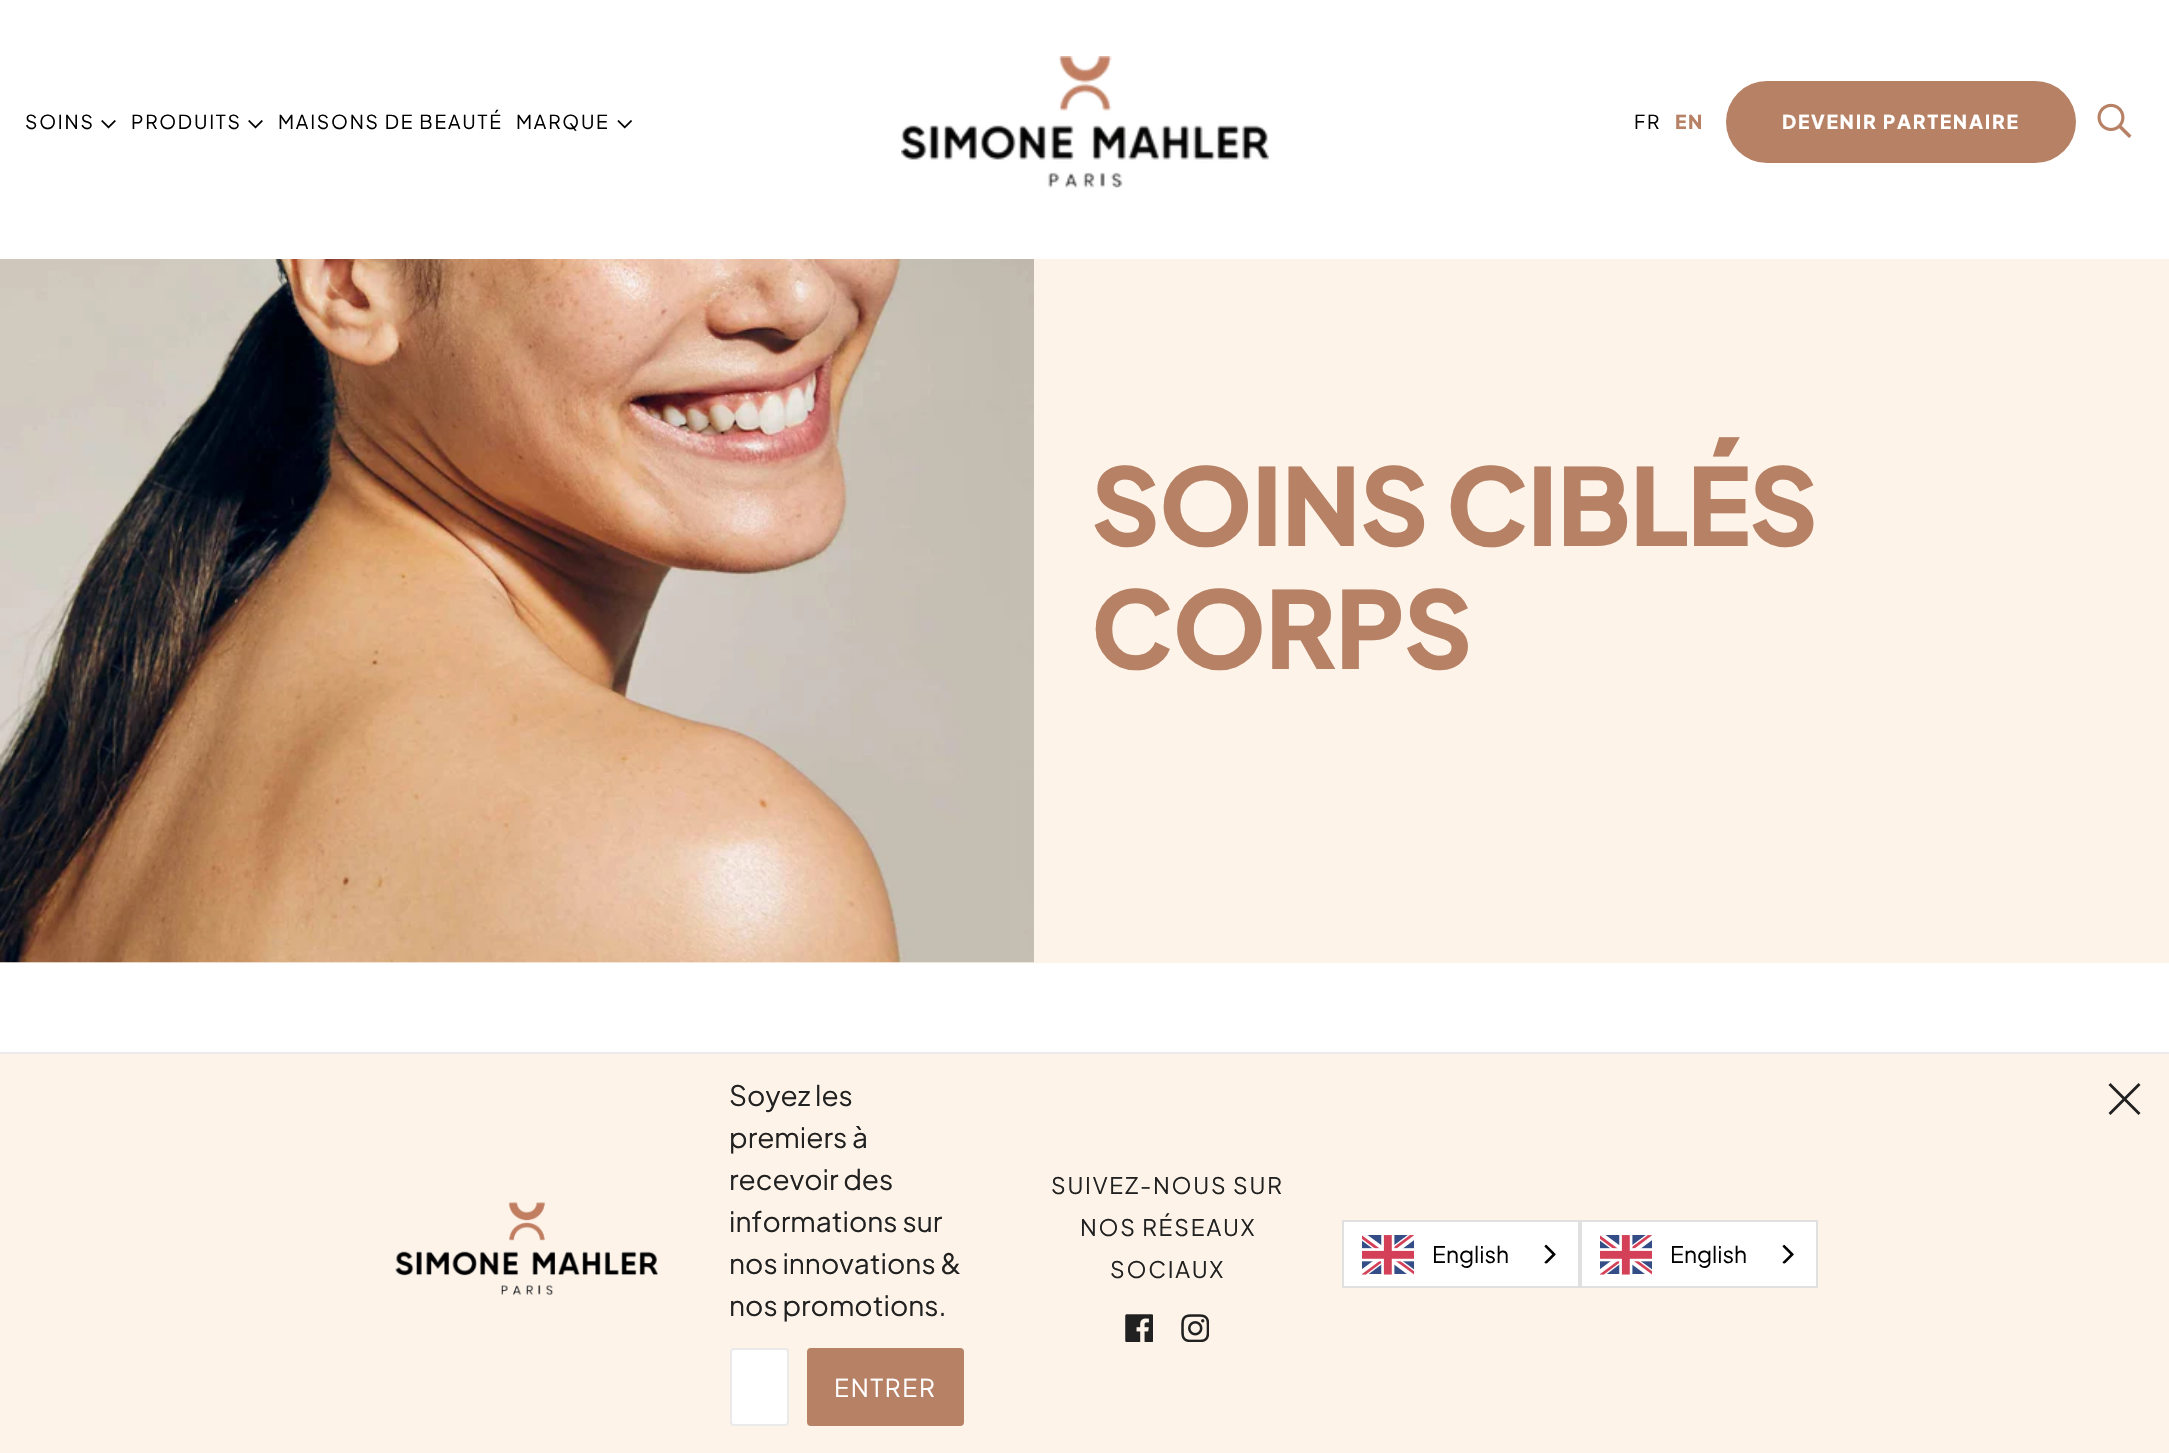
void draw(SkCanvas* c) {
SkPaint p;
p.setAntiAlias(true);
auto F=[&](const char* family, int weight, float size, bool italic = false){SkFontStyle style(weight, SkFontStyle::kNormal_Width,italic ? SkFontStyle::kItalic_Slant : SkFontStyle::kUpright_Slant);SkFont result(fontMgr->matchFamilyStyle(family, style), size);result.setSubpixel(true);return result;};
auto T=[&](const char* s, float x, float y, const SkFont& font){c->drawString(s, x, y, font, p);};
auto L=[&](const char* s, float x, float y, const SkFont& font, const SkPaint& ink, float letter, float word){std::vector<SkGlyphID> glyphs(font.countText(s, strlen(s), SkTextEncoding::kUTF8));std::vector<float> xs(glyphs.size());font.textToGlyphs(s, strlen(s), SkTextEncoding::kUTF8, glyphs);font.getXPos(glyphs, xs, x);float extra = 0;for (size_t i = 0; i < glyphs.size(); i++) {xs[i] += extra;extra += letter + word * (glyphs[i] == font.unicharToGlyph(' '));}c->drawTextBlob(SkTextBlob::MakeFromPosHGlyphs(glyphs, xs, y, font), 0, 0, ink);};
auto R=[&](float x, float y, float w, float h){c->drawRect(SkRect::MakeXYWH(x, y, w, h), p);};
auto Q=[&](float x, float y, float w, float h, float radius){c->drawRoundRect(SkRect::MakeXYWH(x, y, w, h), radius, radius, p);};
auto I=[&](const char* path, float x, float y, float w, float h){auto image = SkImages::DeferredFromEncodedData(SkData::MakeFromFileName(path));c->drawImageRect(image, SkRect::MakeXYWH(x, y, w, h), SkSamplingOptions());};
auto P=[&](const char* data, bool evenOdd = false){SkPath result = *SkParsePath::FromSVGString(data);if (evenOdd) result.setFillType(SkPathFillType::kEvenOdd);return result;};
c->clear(0xffffffff);
auto f1 = F("Plus Jakarta Sans",400,19.25);
p.setColor(0xff000000);
L("SOINS",25,129,f1,p,1.75,0);
I("1.png",101,120,15,9);
L("PRODUITS",131,129,f1,p,1.75,0);
I("1.png",248,120,15,9);
L("MAISONS DE BEAUTÉ",278,129,f1,p,1.75,0);
L("MARQUE",516,129,f1,p,1.75,0);
I("2.png",617,120,16,9);
I("3.png",901,56,368,132);
L("FR",1634,129,f1,p,1.75,0);
auto f2 = F("Plus Jakarta Sans",800,19.25);
p.setColor(0xffb78165);
L("EN",1675,129,f2,p,1.75,0);
Q(1726,81,350,82,41);
p.setColor(0xffffffff);
L("DEVENIR PARTENAIRE",1782,129,f2,p,1.75,0);
I("4.png",2097,103,35,35);
p.setColor(0xfffdf3e8);
R(0,259,2169,704);
I("5.png",0,259,1034,704);
auto f3 = F("Plus Jakarta Sans",800,106.75);
p.setColor(0xffb78165);
L("SOINS CIBLÉS",1091,546,f3,p,-1,0);
L("CORPS",1091,669,f3,p,-1,0);
p.setColor(0xfffdf3e8);
R(0,1054,2169,399);
p.setColor(0xffeaeaea);
R(0,1052,2169,2);
I("6.png",395,1202,263,94);
auto f4 = F("Plus Jakarta Sans",400,28);
p.setColor(0xff212121);
T("Soyez les",729,1106,f4);
T("premiers à",729,1148,f4);
T("recevoir des",729,1190,f4);
T("informations sur",729,1232,f4);
T("nos innovations &",729,1274,f4);
T("nos promotions.",729,1316,f4);
p.setColor(0xffffffff);
c->drawRoundRect(SkRect::MakeXYWH(731,1349,57,76),3,3,p);
p.setStroke(true);
p.setStrokeWidth(2);
p.setColor(0xffeaeaea);
c->drawRoundRect(SkRect::MakeXYWH(731,1349,57,76),3,3,p);
p.setStroke(false);
p.setColor(0xffb78165);
Q(807,1348,157,78,4);
auto f5 = F("Plus Jakarta Sans",400,24.5);
p.setColor(0xffffffff);
L("ENTRER",834,1397,f5,p,1.75,0);
auto f6 = F("Plus Jakarta Sans",400,22.75);
p.setColor(0xff212121);
L("SUIVEZ-NOUS SUR",1051,1194,f6,p,1.75,0);
L("NOS RÉSEAUX",1080,1236,f6,p,1.75,0);
L("SOCIAUX",1110,1278,f6,p,1.75,0);
I("7.png",1125,1314,28,28);
I("8.png",1181,1314,28,28);
p.setColor(0xffffffff);
c->drawRect(SkRect::MakeXYWH(1343,1221,236,66),p);
p.setStroke(true);
p.setColor(0xffe0e0e0);
c->drawRect(SkRect::MakeXYWH(1343,1221,236,66),p);
I("9.png",1362,1235,52,40);
p.setStroke(false);
p.setColor(0xff000000);
T("English",1432,1263,f6);
I("10.png",1544,1244,12,20);
p.setColor(0xffffffff);
c->drawRect(SkRect::MakeXYWH(1581,1221,236,66),p);
p.setStroke(true);
p.setColor(0xffe0e0e0);
c->drawRect(SkRect::MakeXYWH(1581,1221,236,66),p);
I("9.png",1600,1235,52,40);
p.setStroke(false);
p.setColor(0xff000000);
T("English",1670,1263,f6);
I("11.png",1782,1244,12,20);
p.setColor(0xff212121);
c->drawPath(P("M2124.5 1097l14-14l2 2l-14 14l14 14l-2 2l-14-14l-14 14l-2-2l14-14l-14-14l2-2z"),p);
}
